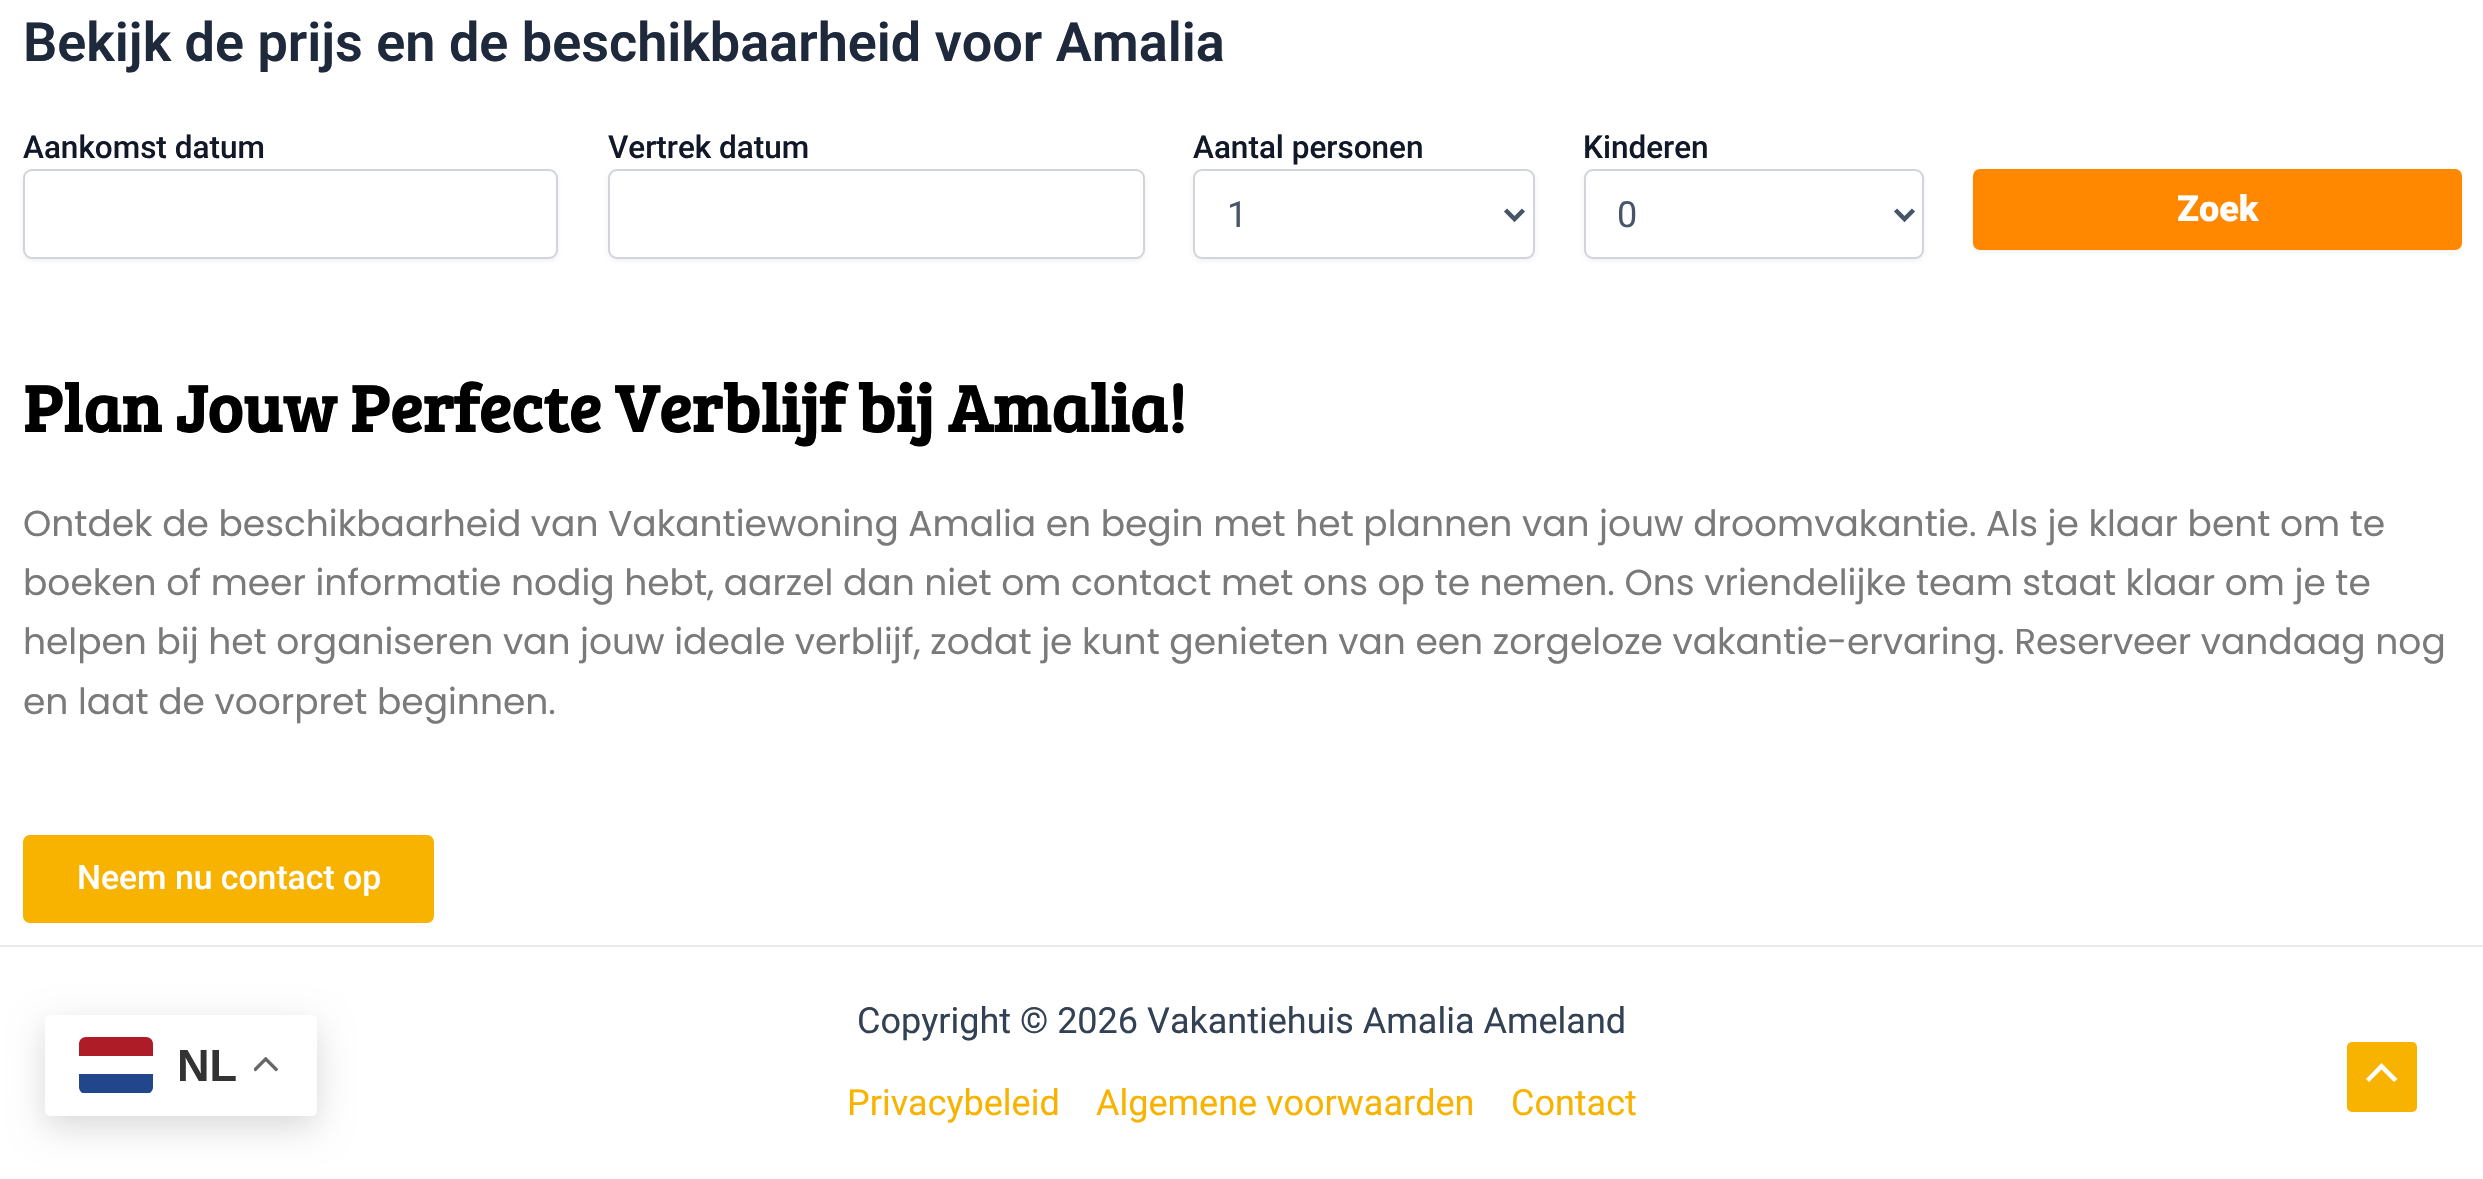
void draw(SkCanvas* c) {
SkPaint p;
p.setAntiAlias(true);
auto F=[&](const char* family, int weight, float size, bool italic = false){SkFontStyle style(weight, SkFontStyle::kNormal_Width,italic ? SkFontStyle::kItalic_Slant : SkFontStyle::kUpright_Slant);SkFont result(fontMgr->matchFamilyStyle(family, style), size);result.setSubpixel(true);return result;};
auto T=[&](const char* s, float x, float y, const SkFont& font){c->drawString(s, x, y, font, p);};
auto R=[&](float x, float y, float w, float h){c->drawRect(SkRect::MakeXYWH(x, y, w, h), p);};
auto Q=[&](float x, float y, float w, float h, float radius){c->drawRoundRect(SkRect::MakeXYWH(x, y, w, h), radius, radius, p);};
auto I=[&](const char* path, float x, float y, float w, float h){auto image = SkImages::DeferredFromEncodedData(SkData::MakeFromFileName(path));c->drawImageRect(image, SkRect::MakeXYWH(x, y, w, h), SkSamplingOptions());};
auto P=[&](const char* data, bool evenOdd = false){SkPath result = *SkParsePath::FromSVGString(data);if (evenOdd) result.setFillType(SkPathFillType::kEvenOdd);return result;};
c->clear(0xffffffff);
auto f1 = F("Roboto",600,54);
p.setColor(0xff1e293b);
T("Bekijk de prijs en de beschikbaarheid voor Amalia",23,61,f1);
auto f2 = F("Roboto",500,31.5);
p.setColor(0xff111827);
T("Aankomst datum",23,158,f2);
p.setColor(0x0d000000);
p.setMaskFilter(SkMaskFilter::MakeBlur(kNormal_SkBlurStyle, 2));
c->drawRoundRect(SkRect::MakeXYWH(23,171,535,90),9,9,p);
p.setMaskFilter(nullptr);
p.setColor(0xffffffff);
c->drawRoundRect(SkRect::MakeXYWH(24,170,533,88),8,8,p);
p.setStroke(true);
p.setStrokeWidth(2);
p.setColor(0xffd1d5db);
c->drawRoundRect(SkRect::MakeXYWH(24,170,533,88),8,8,p);
p.setStroke(false);
p.setColor(0xff111827);
T("Vertrek datum",608,158,f2);
p.setColor(0x0d000000);
p.setMaskFilter(SkMaskFilter::MakeBlur(kNormal_SkBlurStyle, 2));
c->drawRoundRect(SkRect::MakeXYWH(608,171,537,90),9,9,p);
p.setMaskFilter(nullptr);
p.setColor(0xffffffff);
c->drawRoundRect(SkRect::MakeXYWH(609,170,535,88),8,8,p);
p.setStroke(true);
p.setColor(0xffd1d5db);
c->drawRoundRect(SkRect::MakeXYWH(609,170,535,88),8,8,p);
p.setStroke(false);
p.setColor(0xff111827);
T("Aantal personen",1193,158,f2);
p.setColor(0x0d000000);
p.setMaskFilter(SkMaskFilter::MakeBlur(kNormal_SkBlurStyle, 2));
c->drawRoundRect(SkRect::MakeXYWH(1193,171,342,90),9,9,p);
p.setMaskFilter(nullptr);
p.setColor(0xffffffff);
c->drawRoundRect(SkRect::MakeXYWH(1194,170,340,88),8,8,p);
p.setStroke(true);
p.setColor(0xffd1d5db);
c->drawRoundRect(SkRect::MakeXYWH(1194,170,340,88),8,8,p);
p.setStrokeWidth(4.5);
p.setColor(0xff475569);
c->drawPath(P("M1505.5 210l9 9l9-9"),p);
auto f3 = F("Roboto",400,36);
p.setStroke(false);
T("1",1227,227,f3);
p.setColor(0xff111827);
T("Kinderen",1583,158,f2);
p.setColor(0x0d000000);
p.setMaskFilter(SkMaskFilter::MakeBlur(kNormal_SkBlurStyle, 2));
c->drawRoundRect(SkRect::MakeXYWH(1584,171,340,90),9,9,p);
p.setMaskFilter(nullptr);
p.setColor(0xffffffff);
c->drawRoundRect(SkRect::MakeXYWH(1585,170,338,88),8,8,p);
p.setStroke(true);
p.setStrokeWidth(2);
p.setColor(0xffd1d5db);
c->drawRoundRect(SkRect::MakeXYWH(1585,170,338,88),8,8,p);
p.setStrokeWidth(4.5);
p.setColor(0xff475569);
c->drawPath(P("M1895.5 210l9 9l9-9"),p);
p.setStroke(false);
T("0",1617,227,f3);
p.setColor(0x0d000000);
p.setMaskFilter(SkMaskFilter::MakeBlur(kNormal_SkBlurStyle, 2));
c->drawRoundRect(SkRect::MakeXYWH(1973,171,489,81),7,7,p);
p.setMaskFilter(nullptr);
p.setColor(0xffff8800);
Q(1973,169,489,81,7);
auto f4 = F("Roboto",900,36);
p.setColor(0xffffffff);
T("Zoek",2177,221,f4);
auto f5 = F("Bree Serif",700,67.5);
p.setColor(0xff000000);
T("Plan Jouw Perfecte Verblijf bij Amalia!",23,432,f5);
auto f6 = F("Poppins",400,36);
p.setColor(0xff7a7a7a);
T("Ontdek de beschikbaarheid van Vakantiewoning Amalia en begin met het plannen van jouw droomvakantie. Als je klaar bent om te",23,536,f6);
T("boeken of meer informatie nodig hebt, aarzel dan niet om contact met ons op te nemen. Ons vriendelijke team staat klaar om je te",23,595,f6);
T("helpen bij het organiseren van jouw ideale verblijf, zodat je kunt genieten van een zorgeloze vakantie-ervaring. Reserveer vandaag nog",23,654,f6);
T("en laat de voorpret beginnen.",23,714,f6);
p.setColor(0xfff8b200);
Q(23,835,411,88,7);
auto f7 = F("Roboto",500,33.75);
p.setColor(0xffffffff);
T("Neem nu contact op",77,889,f7);
p.setColor(0xffeaeaea);
R(0,945,2483,2);
p.setColor(0xff334155);
T("Copyright © 2026 Vakantiehuis Amalia Ameland",857,1033,f3);
p.setColor(0xfff8b200);
T("Privacybeleid",847,1115,f3);
T("Algemene voorwaarden",1096,1115,f3);
T("Contact",1511,1115,f3);
p.setColor(0x26000000);
p.setMaskFilter(SkMaskFilter::MakeBlur(kNormal_SkBlurStyle, 17));
c->drawRoundRect(SkRect::MakeXYWH(45,1026,272,101),5,5,p);
p.setMaskFilter(nullptr);
p.setColor(0xffffffff);
Q(45,1015,272,101,5);
c->save();
c->clipPath(P("M86 1037h60c4 0 7 3 7 7v43c0 4-3 7-7 7h-60c-4 0-7-3-7-7v-43c0-4 3-7 7-7z"),true);
p.setColor(0xff21468b);
R(79,1074,74,19);
c->restore();
p.setColor(0xffae1c28);
c->drawPath(P("M86 1037h60c4 0 7 3 7 7v12h-74v-12c0-4 3-7 7-7z"),p);
auto f8 = F("Liberation Sans",700,45);
p.setColor(0xff333333);
T("NL",177,1081,f8);
I("1.png",254,1057,24,15);
p.setColor(0xfff8b200);
Q(2347,1042,70,70,5);
p.setColor(0xffffffff);
c->drawPath(P("M2397.5 1079l-16-16l-15.5 16l3 3l12.5-12.5l12.5 12.5z"),p);
}
